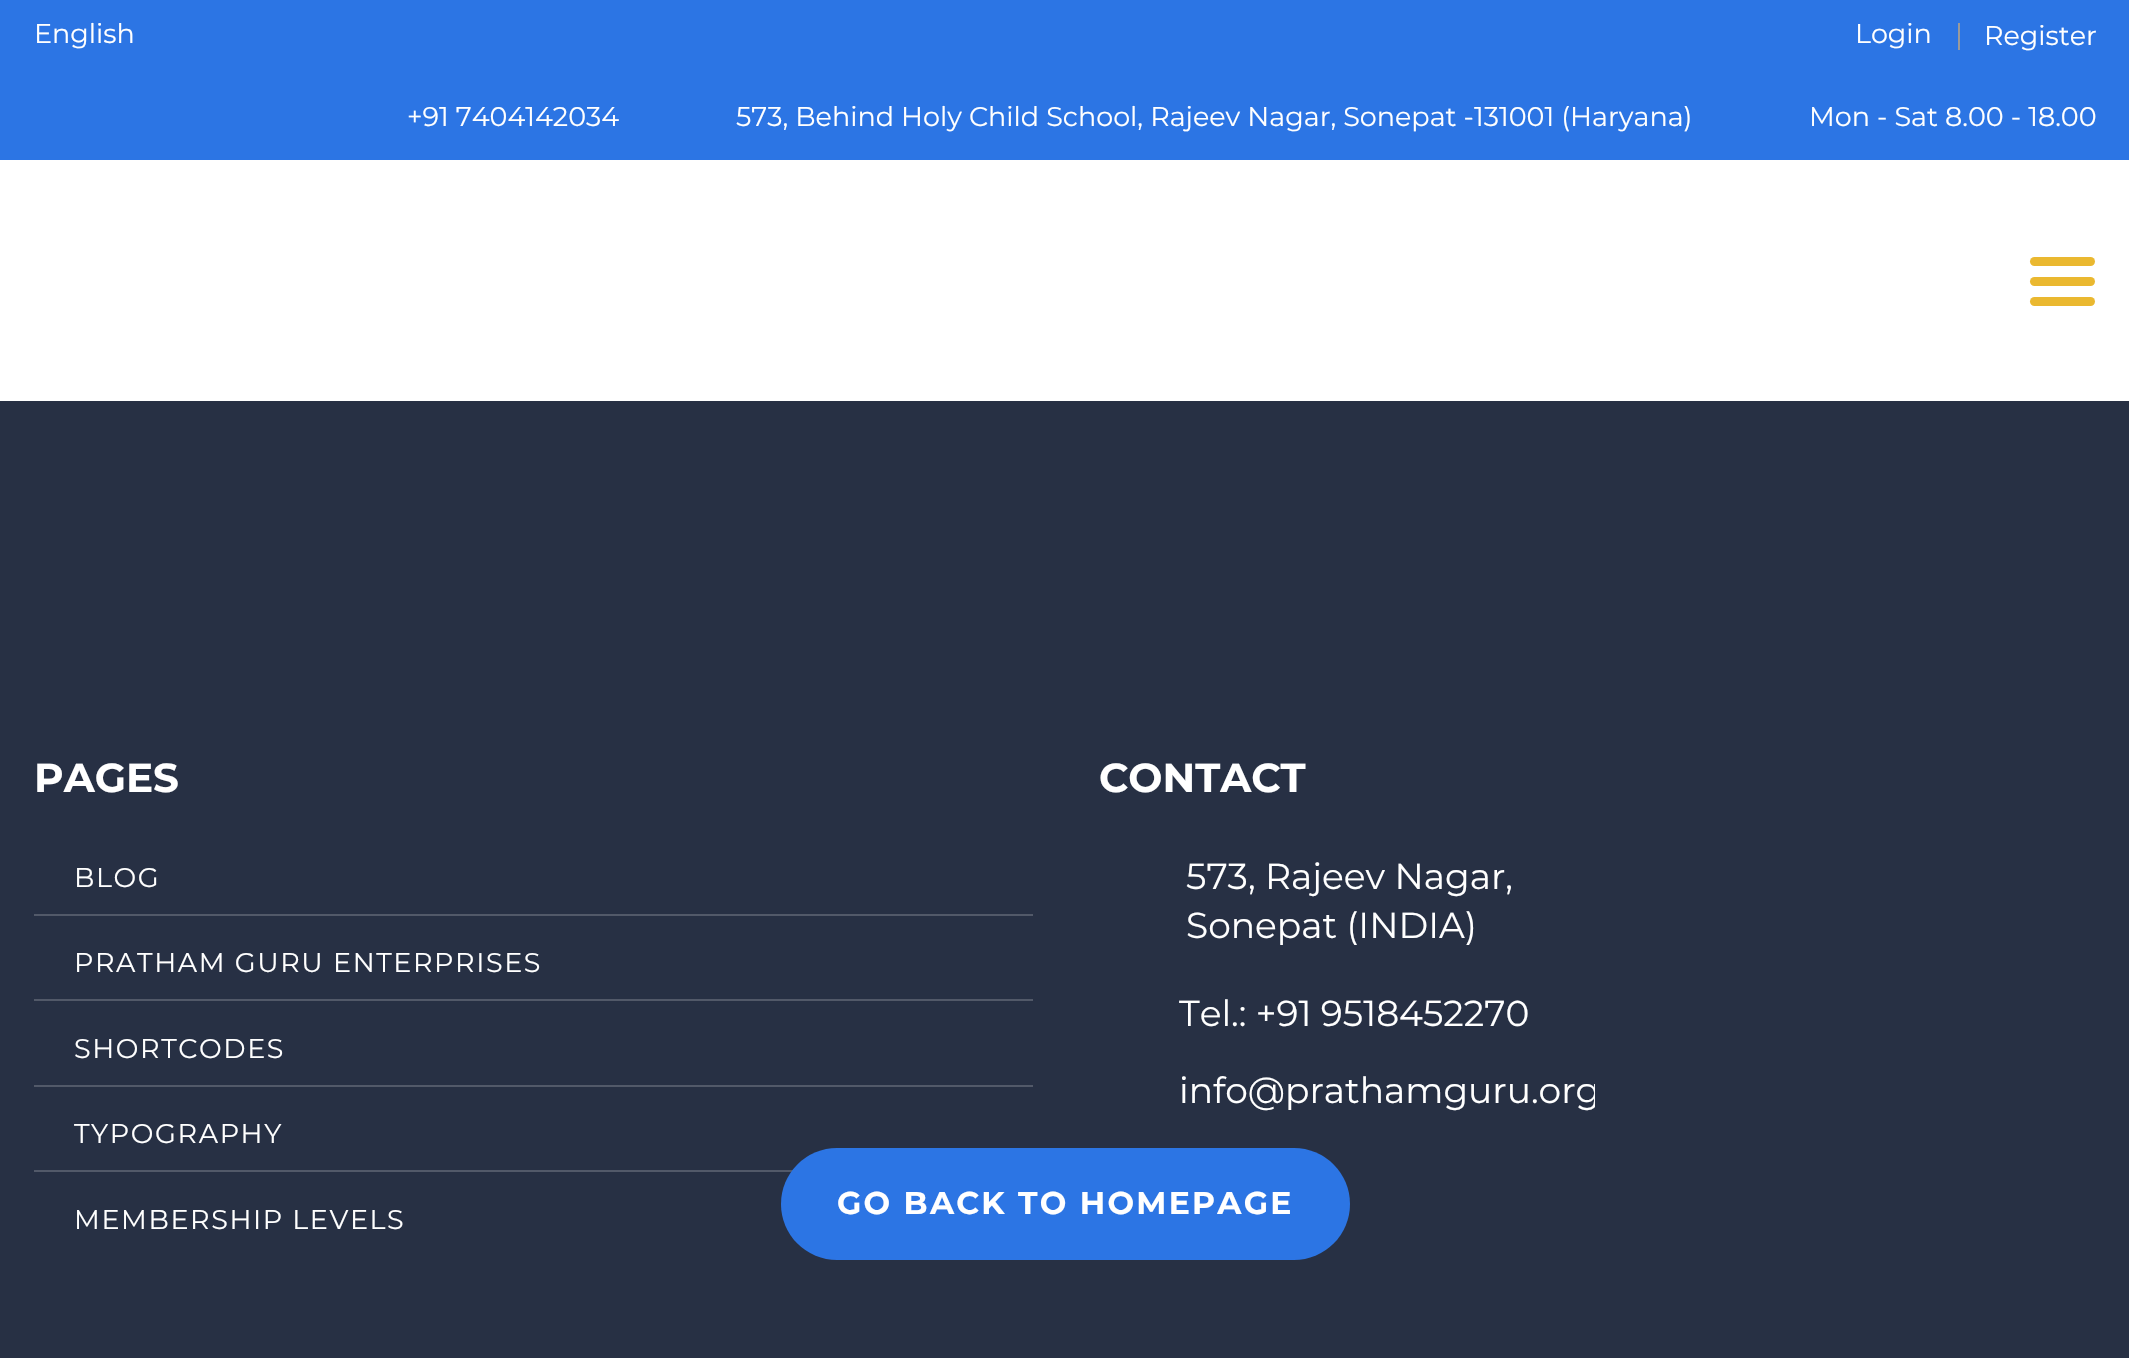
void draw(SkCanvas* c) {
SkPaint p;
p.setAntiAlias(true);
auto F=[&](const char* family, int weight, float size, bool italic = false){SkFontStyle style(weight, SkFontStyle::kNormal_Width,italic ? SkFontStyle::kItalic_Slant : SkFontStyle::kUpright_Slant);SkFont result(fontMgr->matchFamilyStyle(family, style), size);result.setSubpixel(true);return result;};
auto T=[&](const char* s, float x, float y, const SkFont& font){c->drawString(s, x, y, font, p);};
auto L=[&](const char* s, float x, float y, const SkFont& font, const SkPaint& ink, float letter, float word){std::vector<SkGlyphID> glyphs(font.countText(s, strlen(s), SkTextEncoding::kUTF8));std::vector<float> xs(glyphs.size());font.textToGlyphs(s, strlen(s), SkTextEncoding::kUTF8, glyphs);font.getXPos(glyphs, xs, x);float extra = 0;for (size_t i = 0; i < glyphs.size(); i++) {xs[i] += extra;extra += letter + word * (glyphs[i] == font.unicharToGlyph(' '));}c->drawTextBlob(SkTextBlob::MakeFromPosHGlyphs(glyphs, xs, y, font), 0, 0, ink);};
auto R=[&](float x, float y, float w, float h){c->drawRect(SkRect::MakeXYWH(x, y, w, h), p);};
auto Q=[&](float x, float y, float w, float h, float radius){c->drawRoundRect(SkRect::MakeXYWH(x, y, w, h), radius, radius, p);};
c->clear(0xff273044);
p.setColor(0xff2c75e4);
R(0,0,2129,160);
auto f1 = F("Montserrat",400,27);
p.setColor(0xffffffff);
T("English",34,43,f1);
T("Login",1855,43,f1);
p.setColor(0xff9a9a9a);
R(1958,23,2,27);
p.setColor(0xffffffff);
T("Register",1984,45,f1);
T("+91 7404142034",407,126,f1);
T("573, Behind Holy Child School, Rajeev Nagar, Sonepat -131001 (Haryana)",736,126,f1);
T("Mon - Sat 8.00 - 18.00",1809,126,f1);
R(0,160,2129,241);
p.setColor(0xffeab830);
Q(2030,257,65,9,4.5);
Q(2030,277,65,9,4.5);
Q(2030,297,65,9,4.5);
p.setColor(0xff525969);
R(34,1170,759,2);
p.setColor(0xff2c75e4);
Q(781,1148,569,112,56);
auto f2 = F("Montserrat",700,31.5);
p.setColor(0xffffffff);
L("GO BACK TO HOMEPAGE",837,1214,f2,p,2.25,0);
auto f3 = F("Montserrat",700,40.5);
T("PAGES",34,792,f3);
p.setColor(0xff525969);
R(34,914,999,2);
p.setColor(0xffffffff);
L("BLOG",74,887,f1,p,1.6,0);
p.setColor(0xff525969);
R(34,999,999,2);
p.setColor(0xffffffff);
L("PRATHAM GURU ENTERPRISES",74,972,f1,p,1.6,0);
p.setColor(0xff525969);
R(34,1085,999,2);
p.setColor(0xffffffff);
L("SHORTCODES",74,1058,f1,p,1.6,0);
L("TYPOGRAPHY",74,1143,f1,p,1.6,0);
L("MEMBERSHIP LEVELS",74,1229,f1,p,1.6,0);
T("CONTACT",1099,792,f3);
auto f4 = F("Montserrat",400,36);
T("573, Rajeev Nagar,",1186,889,f4);
T("Sonepat (INDIA)",1186,938,f4);
T("Tel.: +91 9518452270",1179,1026,f4);
c->save();
c->clipRect(SkRect::MakeXYWH(1179,1067,416,49));
T("info@prathamguru.org",1179,1103,f4);
c->restore();
}
